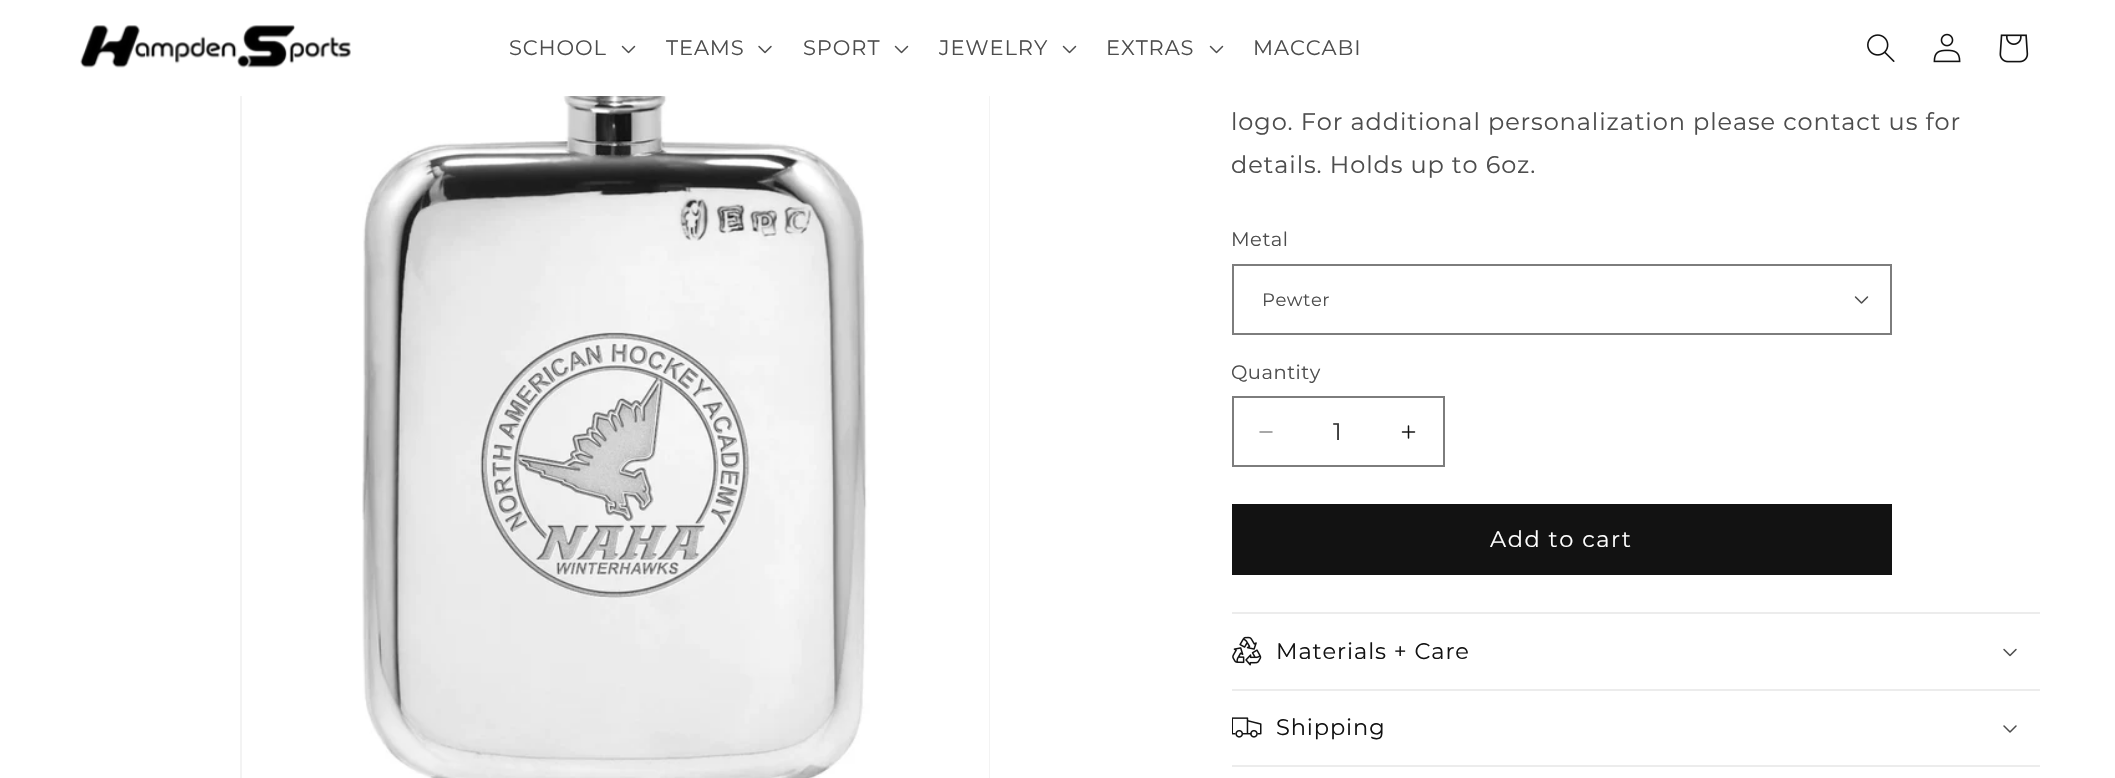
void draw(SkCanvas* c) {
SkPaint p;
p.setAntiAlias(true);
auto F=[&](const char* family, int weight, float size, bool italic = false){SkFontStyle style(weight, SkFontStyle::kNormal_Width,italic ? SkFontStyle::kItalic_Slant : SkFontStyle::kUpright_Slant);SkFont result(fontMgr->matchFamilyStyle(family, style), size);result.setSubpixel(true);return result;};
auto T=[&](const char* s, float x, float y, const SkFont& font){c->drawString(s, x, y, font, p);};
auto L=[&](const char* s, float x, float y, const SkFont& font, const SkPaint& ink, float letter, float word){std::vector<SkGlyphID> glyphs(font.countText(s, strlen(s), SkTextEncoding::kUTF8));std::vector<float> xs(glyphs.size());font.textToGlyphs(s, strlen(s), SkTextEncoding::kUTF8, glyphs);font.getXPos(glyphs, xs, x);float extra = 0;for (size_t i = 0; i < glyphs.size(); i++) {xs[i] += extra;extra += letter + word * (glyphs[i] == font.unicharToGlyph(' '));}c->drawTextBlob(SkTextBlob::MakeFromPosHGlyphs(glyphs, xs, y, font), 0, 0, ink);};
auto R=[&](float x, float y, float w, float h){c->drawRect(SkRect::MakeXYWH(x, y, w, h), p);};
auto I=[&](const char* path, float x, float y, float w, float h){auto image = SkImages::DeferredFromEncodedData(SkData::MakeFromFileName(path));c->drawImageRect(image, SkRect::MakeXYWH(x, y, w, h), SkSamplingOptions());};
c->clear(0xffffffff);
p.setStroke(true);
p.setStrokeWidth(2);
p.setColor(0xfff3f3f3);
c->drawRect(SkRect::MakeXYWH(241,46,748,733),p);
p.setStroke(false);
p.setColor(0xffffffff);
R(240,45,750,51);
I("1.png",80,25,271,43);
auto f1 = F("Montserrat",400,21);
p.setColor(0xff4d4d4d);
L("SCHOOL",509,55,f1,p,.9,0);
I("2.png",621,45,15,9);
L("TEAMS",666,55,f1,p,.9,0);
I("3.png",758,45,14,9);
L("SPORT",803,55,f1,p,.9,0);
I("2.png",894,45,15,9);
L("JEWELRY",939,55,f1,p,.9,0);
I("2.png",1062,45,15,9);
L("EXTRAS",1106,55,f1,p,.9,0);
I("2.png",1209,45,15,9);
L("MACCABI",1253,55,f1,p,.9,0);
I("4.png",1867,34,28,28);
I("5.png",1933,33,28,30);
I("6.png",1999,34,30,29);
I("7.png",362,96,627,682);
auto f2 = F("Montserrat",400,24);
L("logo. For additional personalization please contact us for",1231,130,f2,p,.9,0);
L("details. Holds up to 6oz.",1231,173,f2,p,.9,0);
auto f3 = F("Montserrat",400,19.5);
L("Metal",1231,246,f3,p,.5,0);
I("8.png",1854,296,15,8);
p.setStroke(true);
p.setColor(0xff7d7d7d);
c->drawRect(SkRect::MakeXYWH(1233,265,658,69),p);
auto f4 = F("Montserrat",400,18);
p.setStroke(false);
p.setColor(0xff4d4d4d);
L("Pewter",1262,306,f4,p,.5,0);
L("Quantity",1231,379,f3,p,.5,0);
I("9.png",1259,431,14,2);
I("10.png",1401,425,15,14);
p.setStroke(true);
p.setColor(0xff7d7d7d);
c->drawRect(SkRect::MakeXYWH(1233,397,211,69),p);
p.setStroke(false);
p.setColor(0xff363636);
T("1",1333,440,f2);
p.setColor(0xff121212);
R(1232,504,660,71);
auto f5 = F("Montserrat",400,22.5);
p.setColor(0xffffffff);
L("Add to cart",1490,547,f5,p,1.5,0);
p.setColor(0xffececec);
R(1232,612,808,2);
R(1232,689,808,2);
I("11.png",1232,636,30,30);
p.setColor(0xff121212);
L("Materials + Care",1276,659,f5,p,.9,0);
I("3.png",2003,648,14,9);
p.setColor(0xffececec);
R(1232,765,808,2);
I("12.png",1232,717,30,21);
p.setColor(0xff121212);
L("Shipping",1276,735,f5,p,.9,0);
I("13.png",2003,725,14,8);
}
